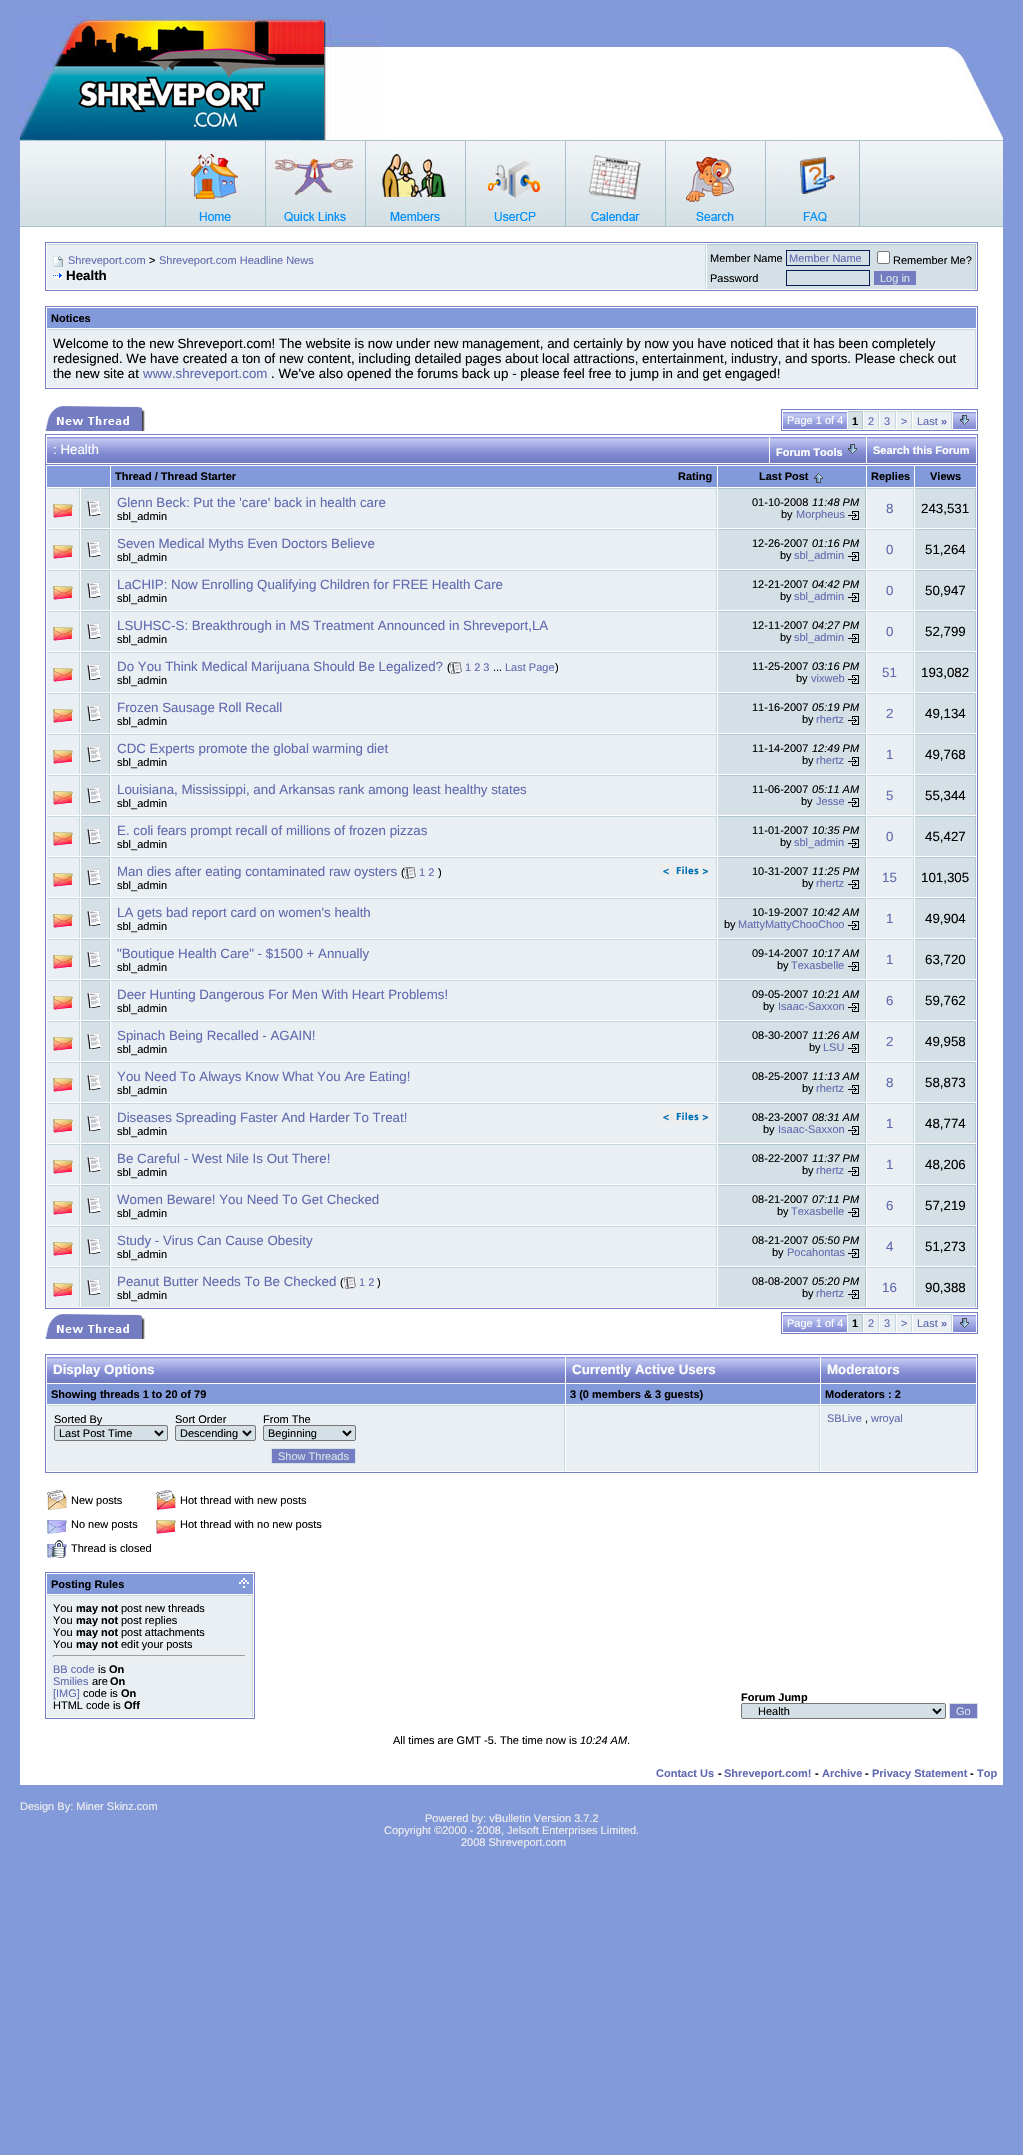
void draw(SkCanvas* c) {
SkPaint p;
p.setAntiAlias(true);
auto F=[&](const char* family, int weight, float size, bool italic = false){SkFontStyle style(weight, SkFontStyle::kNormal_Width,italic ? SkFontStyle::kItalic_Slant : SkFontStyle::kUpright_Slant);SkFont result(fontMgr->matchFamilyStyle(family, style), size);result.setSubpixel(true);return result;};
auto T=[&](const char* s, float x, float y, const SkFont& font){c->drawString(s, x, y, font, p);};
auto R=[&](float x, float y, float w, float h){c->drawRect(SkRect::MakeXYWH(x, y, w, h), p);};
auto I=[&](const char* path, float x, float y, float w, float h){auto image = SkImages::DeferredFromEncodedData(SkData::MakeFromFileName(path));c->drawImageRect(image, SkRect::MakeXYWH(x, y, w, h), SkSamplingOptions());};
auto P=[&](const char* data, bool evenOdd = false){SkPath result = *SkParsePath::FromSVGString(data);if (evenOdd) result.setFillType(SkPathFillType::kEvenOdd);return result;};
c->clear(0xff8299da);
p.setColor(0xffffffff);
R(381,47,551,93);
I("1.png",20,16,361,124);
I("2.png",932,40,71,100);
I("3.png",20,140,983,87);
I("4.png",162,140,100,87);
I("5.png",262,140,100,87);
I("6.png",362,140,100,87);
I("7.png",462,140,100,87);
I("8.png",562,140,100,87);
I("9.png",662,140,100,87);
I("10.png",762,140,100,87);
R(20,227,983,1534);
p.setStroke(true);
p.setStrokeWidth(1);
p.setColor(0xff7881c8);
c->drawRect(SkRect::MakeXYWH(45.5,242.5,932,48),p);
p.setStroke(false);
p.setColor(0xffe9eff2);
R(47,245,658,44);
p.setColor(0xffc5d9df);
R(47,244,659,1);
R(705,244,1,45);
I("11.png",53,256,10,11);
auto f1 = F("Liberation Sans",400,11);
p.setColor(0xff616ab0);
T("Shreveport.com",68,264,f1);
p.setColor(0xff000000);
T(">",149,264,f1);
p.setColor(0xff616ab0);
T("Shreveport.com Headline News",159,264,f1);
I("12.png",53,272,9,7);
auto f2 = F("Liberation Sans",700,13.33);
p.setColor(0xff000000);
T("Health",66,280,f2);
p.setColor(0xffd4e0e5);
R(707,245,268,44);
p.setColor(0xffb1c7cf);
R(707,244,269,1);
R(975,244,1,45);
p.setColor(0xff000000);
T("Member Name",710,262,f1);
p.setStroke(true);
p.setColor(0xff001e51);
c->drawRect(SkRect::MakeXYWH(786.5,250.5,83,15),p);
p.setStroke(false);
p.setColor(0xff616ab0);
T("Member Name",789,262,f1);
p.setColor(0xffffffff);
c->drawRoundRect(SkRect::MakeXYWH(877.5,251.5,12,12),1.5,1.5,p);
p.setStroke(true);
p.setColor(0xff767676);
c->drawRoundRect(SkRect::MakeXYWH(877.5,251.5,12,12),1.5,1.5,p);
p.setStroke(false);
p.setColor(0xff000000);
T("Remember Me?",893,264,f1);
T("Password",710,282,f1);
p.setStroke(true);
p.setColor(0xff001e51);
c->drawRect(SkRect::MakeXYWH(786.5,270.5,83,15),p);
p.setStroke(false);
p.setColor(0xff757dc2);
R(874,271,42,14);
p.setColor(0xffd4e0e5);
T("Log in",880,282,f1);
p.setStroke(true);
p.setColor(0xff7881c8);
c->drawRect(SkRect::MakeXYWH(45.5,306.5,932,82),p);
p.setStroke(false);
p.setColor(0xff8299da);
R(47,308,929,20);
auto f3 = F("Liberation Sans",700,11);
p.setColor(0xff000000);
T("Notices",51,322,f3);
p.setColor(0xffe9eff2);
R(47,330,928,57);
p.setColor(0xffc5d9df);
R(47,329,929,1);
R(975,329,1,58);
auto f4 = F("Liberation Sans",400,13.33);
p.setColor(0xff000000);
T("Welcome to the new Shreveport.com! The website is now under new management, and certainly by now you have noticed that it has been completely",53,348,f4);
T("redesigned. We have created a ton of new content, including detailed pages about local attractions, entertainment, industry, and sports. Please check out",53,363,f4);
T("the new site at",53,378,f4);
p.setColor(0xff616ab0);
T("www.shreveport.com",143,378,f4);
p.setColor(0xff000000);
T(". We've also opened the forums back up - please feel free to jump in and get engaged!",271,378,f4);
I("13.png",45,406,100,25);
p.setStroke(true);
p.setColor(0xff7881c8);
c->drawRect(SkRect::MakeXYWH(781.5,409.5,196,21),p);
I("14.png",783,411,64,18);
p.setStroke(false);
p.setColor(0xffffffff);
T("Page 1 of 4",787,424,f1);
p.setColor(0xffd4e0e5);
R(848,412,14,17);
p.setColor(0xffb1c7cf);
R(848,411,15,1);
R(862,411,1,18);
p.setColor(0xff000000);
T("1",852,425,f3);
p.setColor(0xffe9eff2);
R(864,412,14,17);
p.setColor(0xffc5d9df);
R(864,411,15,1);
R(878,411,1,18);
p.setColor(0xff616ab0);
T("2",868,425,f1);
p.setColor(0xffe9eff2);
R(880,412,15,17);
p.setColor(0xffc5d9df);
R(880,411,16,1);
R(895,411,1,18);
p.setColor(0xff616ab0);
T("3",884,425,f1);
p.setColor(0xffe9eff2);
R(897,412,14,17);
p.setColor(0xffc5d9df);
R(897,411,15,1);
R(911,411,1,18);
p.setColor(0xff616ab0);
T(">",901,425,f1);
p.setColor(0xffe9eff2);
R(913,412,38,17);
p.setColor(0xffc5d9df);
R(913,411,39,1);
R(951,411,1,18);
p.setColor(0xff616ab0);
T("Last",917,425,f1);
T("»",941,425,f3);
I("15.png",953,411,23,18);
I("16.png",960,415,9,10);
p.setColor(0xff7881c8);
R(45,434,933,1);
R(977,434,1,30);
R(45,434,1,30);
p.setColor(0xff757dc2);
R(47,460,722,3);
I("17.png",47,436,722,24);
p.setColor(0xffffffff);
T(": Health",53,454,f4);
p.setColor(0xff757dc2);
R(770,460,96,3);
I("18.png",770,436,96,24);
p.setColor(0xffffffff);
T("Forum Tools",776,456,f3);
I("19.png",848,444,9,10);
p.setColor(0xff757dc2);
R(867,460,109,3);
I("20.png",867,436,109,24);
p.setColor(0xffffffff);
T("Search this Forum",873,454,f3);
p.setStroke(true);
p.setColor(0xff7881c8);
c->drawRect(SkRect::MakeXYWH(45.5,464.5,932,844),p);
p.setStroke(false);
p.setColor(0xff8299da);
R(47,466,63,21);
R(111,466,606,21);
p.setColor(0xff000000);
T("Thread / Thread Starter",115,480,f3);
T("Rating",678,480,f3);
p.setColor(0xff8299da);
R(718,466,148,21);
p.setColor(0xff000000);
T("Last Post",759,480,f3);
I("21.png",814,473,9,10);
p.setColor(0xff8299da);
R(867,466,47,21);
p.setColor(0xff000000);
T("Replies",871,480,f3);
p.setColor(0xff8299da);
R(915,466,61,21);
p.setColor(0xff000000);
T("Views",930,480,f3);
p.setColor(0xffe9eff2);
R(47,489,32,39);
p.setColor(0xffc5d9df);
R(47,488,33,1);
R(79,488,1,40);
I("22.png",53,504,20,14);
p.setColor(0xffd4e0e5);
R(81,489,28,39);
p.setColor(0xffb1c7cf);
R(81,488,29,1);
R(109,488,1,40);
I("23.png",87,500,15,16);
p.setColor(0xffe9eff2);
R(111,489,605,39);
p.setColor(0xffc5d9df);
R(111,488,606,1);
R(716,488,1,40);
p.setColor(0xff616ab0);
T("Glenn Beck: Put the 'care' back in health care",117,507,f4);
p.setColor(0xff000000);
T("sbl_admin",117,520,f1);
p.setColor(0xffd4e0e5);
R(718,489,147,39);
p.setColor(0xffb1c7cf);
R(718,488,148,1);
R(865,488,1,40);
p.setColor(0xff000000);
T("01-10-2008",752,506,f1);
auto f5 = F("Liberation Sans",400,11,true);
T("11:48 PM",812,506,f5);
T("by",781,518,f1);
p.setColor(0xff616ab0);
T("Morpheus",796,518,f1);
I("24.png",848,511,11,9);
p.setColor(0xffe9eff2);
R(867,489,46,39);
p.setColor(0xffc5d9df);
R(867,488,47,1);
R(913,488,1,40);
p.setColor(0xff616ab0);
T("8",886,513,f4);
p.setColor(0xffd4e0e5);
R(915,489,60,39);
p.setColor(0xffb1c7cf);
R(915,488,61,1);
R(975,488,1,40);
p.setColor(0xff000000);
T("243,531",921,513,f4);
p.setColor(0xffe9eff2);
R(47,530,32,39);
p.setColor(0xffc5d9df);
R(47,529,33,1);
R(79,529,1,40);
I("22.png",53,545,20,14);
p.setColor(0xffd4e0e5);
R(81,530,28,39);
p.setColor(0xffb1c7cf);
R(81,529,29,1);
R(109,529,1,40);
I("23.png",87,541,15,16);
p.setColor(0xffe9eff2);
R(111,530,605,39);
p.setColor(0xffc5d9df);
R(111,529,606,1);
R(716,529,1,40);
p.setColor(0xff616ab0);
T("Seven Medical Myths Even Doctors Believe",117,548,f4);
p.setColor(0xff000000);
T("sbl_admin",117,561,f1);
p.setColor(0xffd4e0e5);
R(718,530,147,39);
p.setColor(0xffb1c7cf);
R(718,529,148,1);
R(865,529,1,40);
p.setColor(0xff000000);
T("12-26-2007",752,547,f1);
T("01:16 PM",812,547,f5);
T("by",780,559,f1);
p.setColor(0xff616ab0);
T("sbl_admin",794,559,f1);
I("24.png",848,552,11,9);
p.setColor(0xffe9eff2);
R(867,530,46,39);
p.setColor(0xffc5d9df);
R(867,529,47,1);
R(913,529,1,40);
p.setColor(0xff616ab0);
T("0",886,554,f4);
p.setColor(0xffd4e0e5);
R(915,530,60,39);
p.setColor(0xffb1c7cf);
R(915,529,61,1);
R(975,529,1,40);
p.setColor(0xff000000);
T("51,264",925,554,f4);
p.setColor(0xffe9eff2);
R(47,571,32,39);
p.setColor(0xffc5d9df);
R(47,570,33,1);
R(79,570,1,40);
I("22.png",53,586,20,14);
p.setColor(0xffd4e0e5);
R(81,571,28,39);
p.setColor(0xffb1c7cf);
R(81,570,29,1);
R(109,570,1,40);
I("23.png",87,582,15,16);
p.setColor(0xffe9eff2);
R(111,571,605,39);
p.setColor(0xffc5d9df);
R(111,570,606,1);
R(716,570,1,40);
p.setColor(0xff616ab0);
T("LaCHIP: Now Enrolling Qualifying Children for FREE Health Care",117,589,f4);
p.setColor(0xff000000);
T("sbl_admin",117,602,f1);
p.setColor(0xffd4e0e5);
R(718,571,147,39);
p.setColor(0xffb1c7cf);
R(718,570,148,1);
R(865,570,1,40);
p.setColor(0xff000000);
T("12-21-2007",752,588,f1);
T("04:42 PM",812,588,f5);
T("by",780,600,f1);
p.setColor(0xff616ab0);
T("sbl_admin",794,600,f1);
I("24.png",848,593,11,9);
p.setColor(0xffe9eff2);
R(867,571,46,39);
p.setColor(0xffc5d9df);
R(867,570,47,1);
R(913,570,1,40);
p.setColor(0xff616ab0);
T("0",886,595,f4);
p.setColor(0xffd4e0e5);
R(915,571,60,39);
p.setColor(0xffb1c7cf);
R(915,570,61,1);
R(975,570,1,40);
p.setColor(0xff000000);
T("50,947",925,595,f4);
p.setColor(0xffe9eff2);
R(47,612,32,39);
p.setColor(0xffc5d9df);
R(47,611,33,1);
R(79,611,1,40);
I("22.png",53,627,20,14);
p.setColor(0xffd4e0e5);
R(81,612,28,39);
p.setColor(0xffb1c7cf);
R(81,611,29,1);
R(109,611,1,40);
I("23.png",87,623,15,16);
p.setColor(0xffe9eff2);
R(111,612,605,39);
p.setColor(0xffc5d9df);
R(111,611,606,1);
R(716,611,1,40);
p.setColor(0xff616ab0);
T("LSUHSC-S: Breakthrough in MS Treatment Announced in Shreveport,LA",117,630,f4);
p.setColor(0xff000000);
T("sbl_admin",117,643,f1);
p.setColor(0xffd4e0e5);
R(718,612,147,39);
p.setColor(0xffb1c7cf);
R(718,611,148,1);
R(865,611,1,40);
p.setColor(0xff000000);
T("12-11-2007",752,629,f1);
T("04:27 PM",812,629,f5);
T("by",780,641,f1);
p.setColor(0xff616ab0);
T("sbl_admin",794,641,f1);
I("24.png",848,634,11,9);
p.setColor(0xffe9eff2);
R(867,612,46,39);
p.setColor(0xffc5d9df);
R(867,611,47,1);
R(913,611,1,40);
p.setColor(0xff616ab0);
T("0",886,636,f4);
p.setColor(0xffd4e0e5);
R(915,612,60,39);
p.setColor(0xffb1c7cf);
R(915,611,61,1);
R(975,611,1,40);
p.setColor(0xff000000);
T("52,799",925,636,f4);
p.setColor(0xffe9eff2);
R(47,653,32,39);
p.setColor(0xffc5d9df);
R(47,652,33,1);
R(79,652,1,40);
I("22.png",53,668,20,14);
p.setColor(0xffd4e0e5);
R(81,653,28,39);
p.setColor(0xffb1c7cf);
R(81,652,29,1);
R(109,652,1,40);
I("23.png",87,664,15,16);
p.setColor(0xffe9eff2);
R(111,653,605,39);
p.setColor(0xffc5d9df);
R(111,652,606,1);
R(716,652,1,40);
p.setColor(0xff616ab0);
T("Do You Think Medical Marijuana Should Be Legalized?",117,671,f4);
p.setColor(0xff000000);
T("(",447,671,f1);
I("25.png",450,662,12,12);
p.setColor(0xff616ab0);
T("1 2 3",465,671,f1);
p.setColor(0xff000000);
T("...",493,671,f1);
p.setColor(0xff616ab0);
T("Last Page",505,671,f1);
p.setColor(0xff000000);
T(")",555,671,f1);
T("sbl_admin",117,684,f1);
p.setColor(0xffd4e0e5);
R(718,653,147,39);
p.setColor(0xffb1c7cf);
R(718,652,148,1);
R(865,652,1,40);
p.setColor(0xff000000);
T("11-25-2007",752,670,f1);
T("03:16 PM",812,670,f5);
T("by",796,682,f1);
p.setColor(0xff616ab0);
T("vixweb",811,682,f1);
I("24.png",848,675,11,9);
p.setColor(0xffe9eff2);
R(867,653,46,39);
p.setColor(0xffc5d9df);
R(867,652,47,1);
R(913,652,1,40);
p.setColor(0xff616ab0);
T("51",882,677,f4);
p.setColor(0xffd4e0e5);
R(915,653,60,39);
p.setColor(0xffb1c7cf);
R(915,652,61,1);
R(975,652,1,40);
p.setColor(0xff000000);
T("193,082",921,677,f4);
p.setColor(0xffe9eff2);
R(47,694,32,39);
p.setColor(0xffc5d9df);
R(47,693,33,1);
R(79,693,1,40);
I("22.png",53,709,20,14);
p.setColor(0xffd4e0e5);
R(81,694,28,39);
p.setColor(0xffb1c7cf);
R(81,693,29,1);
R(109,693,1,40);
I("23.png",87,705,15,16);
p.setColor(0xffe9eff2);
R(111,694,605,39);
p.setColor(0xffc5d9df);
R(111,693,606,1);
R(716,693,1,40);
p.setColor(0xff616ab0);
T("Frozen Sausage Roll Recall",117,712,f4);
p.setColor(0xff000000);
T("sbl_admin",117,725,f1);
p.setColor(0xffd4e0e5);
R(718,694,147,39);
p.setColor(0xffb1c7cf);
R(718,693,148,1);
R(865,693,1,40);
p.setColor(0xff000000);
T("11-16-2007",752,711,f1);
T("05:19 PM",812,711,f5);
T("by",802,723,f1);
p.setColor(0xff616ab0);
T("rhertz",816,723,f1);
I("24.png",848,716,11,9);
p.setColor(0xffe9eff2);
R(867,694,46,39);
p.setColor(0xffc5d9df);
R(867,693,47,1);
R(913,693,1,40);
p.setColor(0xff616ab0);
T("2",886,718,f4);
p.setColor(0xffd4e0e5);
R(915,694,60,39);
p.setColor(0xffb1c7cf);
R(915,693,61,1);
R(975,693,1,40);
p.setColor(0xff000000);
T("49,134",925,718,f4);
p.setColor(0xffe9eff2);
R(47,735,32,39);
p.setColor(0xffc5d9df);
R(47,734,33,1);
R(79,734,1,40);
I("22.png",53,750,20,14);
p.setColor(0xffd4e0e5);
R(81,735,28,39);
p.setColor(0xffb1c7cf);
R(81,734,29,1);
R(109,734,1,40);
I("23.png",87,746,15,16);
p.setColor(0xffe9eff2);
R(111,735,605,39);
p.setColor(0xffc5d9df);
R(111,734,606,1);
R(716,734,1,40);
p.setColor(0xff616ab0);
T("CDC Experts promote the global warming diet",117,753,f4);
p.setColor(0xff000000);
T("sbl_admin",117,766,f1);
p.setColor(0xffd4e0e5);
R(718,735,147,39);
p.setColor(0xffb1c7cf);
R(718,734,148,1);
R(865,734,1,40);
p.setColor(0xff000000);
T("11-14-2007",752,752,f1);
T("12:49 PM",812,752,f5);
T("by",802,764,f1);
p.setColor(0xff616ab0);
T("rhertz",816,764,f1);
I("24.png",848,757,11,9);
p.setColor(0xffe9eff2);
R(867,735,46,39);
p.setColor(0xffc5d9df);
R(867,734,47,1);
R(913,734,1,40);
p.setColor(0xff616ab0);
T("1",886,759,f4);
p.setColor(0xffd4e0e5);
R(915,735,60,39);
p.setColor(0xffb1c7cf);
R(915,734,61,1);
R(975,734,1,40);
p.setColor(0xff000000);
T("49,768",925,759,f4);
p.setColor(0xffe9eff2);
R(47,776,32,39);
p.setColor(0xffc5d9df);
R(47,775,33,1);
R(79,775,1,40);
I("22.png",53,791,20,14);
p.setColor(0xffd4e0e5);
R(81,776,28,39);
p.setColor(0xffb1c7cf);
R(81,775,29,1);
R(109,775,1,40);
I("23.png",87,787,15,16);
p.setColor(0xffe9eff2);
R(111,776,605,39);
p.setColor(0xffc5d9df);
R(111,775,606,1);
R(716,775,1,40);
p.setColor(0xff616ab0);
T("Louisiana, Mississippi, and Arkansas rank among least healthy states",117,794,f4);
p.setColor(0xff000000);
T("sbl_admin",117,807,f1);
p.setColor(0xffd4e0e5);
R(718,776,147,39);
p.setColor(0xffb1c7cf);
R(718,775,148,1);
R(865,775,1,40);
p.setColor(0xff000000);
T("11-06-2007",752,793,f1);
T("05:11 AM",812,793,f5);
T("by",801,805,f1);
p.setColor(0xff616ab0);
T("Jesse",816,805,f1);
I("24.png",848,798,11,9);
p.setColor(0xffe9eff2);
R(867,776,46,39);
p.setColor(0xffc5d9df);
R(867,775,47,1);
R(913,775,1,40);
p.setColor(0xff616ab0);
T("5",886,800,f4);
p.setColor(0xffd4e0e5);
R(915,776,60,39);
p.setColor(0xffb1c7cf);
R(915,775,61,1);
R(975,775,1,40);
p.setColor(0xff000000);
T("55,344",925,800,f4);
p.setColor(0xffe9eff2);
R(47,817,32,39);
p.setColor(0xffc5d9df);
R(47,816,33,1);
R(79,816,1,40);
I("22.png",53,832,20,14);
p.setColor(0xffd4e0e5);
R(81,817,28,39);
p.setColor(0xffb1c7cf);
R(81,816,29,1);
R(109,816,1,40);
I("23.png",87,828,15,16);
p.setColor(0xffe9eff2);
R(111,817,605,39);
p.setColor(0xffc5d9df);
R(111,816,606,1);
R(716,816,1,40);
p.setColor(0xff616ab0);
T("E. coli fears prompt recall of millions of frozen pizzas",117,835,f4);
p.setColor(0xff000000);
T("sbl_admin",117,848,f1);
p.setColor(0xffd4e0e5);
R(718,817,147,39);
p.setColor(0xffb1c7cf);
R(718,816,148,1);
R(865,816,1,40);
p.setColor(0xff000000);
T("11-01-2007",752,834,f1);
T("10:35 PM",812,834,f5);
T("by",780,846,f1);
p.setColor(0xff616ab0);
T("sbl_admin",794,846,f1);
I("24.png",848,839,11,9);
p.setColor(0xffe9eff2);
R(867,817,46,39);
p.setColor(0xffc5d9df);
R(867,816,47,1);
R(913,816,1,40);
p.setColor(0xff616ab0);
T("0",886,841,f4);
p.setColor(0xffd4e0e5);
R(915,817,60,39);
p.setColor(0xffb1c7cf);
R(915,816,61,1);
R(975,816,1,40);
p.setColor(0xff000000);
T("45,427",925,841,f4);
p.setColor(0xffe9eff2);
R(47,858,32,39);
p.setColor(0xffc5d9df);
R(47,857,33,1);
R(79,857,1,40);
I("22.png",53,873,20,14);
p.setColor(0xffd4e0e5);
R(81,858,28,39);
p.setColor(0xffb1c7cf);
R(81,857,29,1);
R(109,857,1,40);
I("23.png",87,869,15,16);
p.setColor(0xffe9eff2);
R(111,858,605,39);
p.setColor(0xffc5d9df);
R(111,857,606,1);
R(716,857,1,40);
p.setColor(0xff616ab0);
T("Man dies after eating contaminated raw oysters",117,876,f4);
p.setColor(0xff000000);
T("(",401,876,f1);
I("26.png",404,867,12,12);
p.setColor(0xff616ab0);
T("1 2",419,876,f1);
p.setColor(0xff000000);
T(")",438,876,f1);
I("27.png",660,864,50,12);
T("sbl_admin",117,889,f1);
p.setColor(0xffd4e0e5);
R(718,858,147,39);
p.setColor(0xffb1c7cf);
R(718,857,148,1);
R(865,857,1,40);
p.setColor(0xff000000);
T("10-31-2007",752,875,f1);
T("11:25 PM",812,875,f5);
T("by",802,887,f1);
p.setColor(0xff616ab0);
T("rhertz",816,887,f1);
I("24.png",848,880,11,9);
p.setColor(0xffe9eff2);
R(867,858,46,39);
p.setColor(0xffc5d9df);
R(867,857,47,1);
R(913,857,1,40);
p.setColor(0xff616ab0);
T("15",882,882,f4);
p.setColor(0xffd4e0e5);
R(915,858,60,39);
p.setColor(0xffb1c7cf);
R(915,857,61,1);
R(975,857,1,40);
p.setColor(0xff000000);
T("101,305",921,882,f4);
p.setColor(0xffe9eff2);
R(47,899,32,39);
p.setColor(0xffc5d9df);
R(47,898,33,1);
R(79,898,1,40);
I("22.png",53,914,20,14);
p.setColor(0xffd4e0e5);
R(81,899,28,39);
p.setColor(0xffb1c7cf);
R(81,898,29,1);
R(109,898,1,40);
I("23.png",87,910,15,16);
p.setColor(0xffe9eff2);
R(111,899,605,39);
p.setColor(0xffc5d9df);
R(111,898,606,1);
R(716,898,1,40);
p.setColor(0xff616ab0);
T("LA gets bad report card on women's health",117,917,f4);
p.setColor(0xff000000);
T("sbl_admin",117,930,f1);
p.setColor(0xffd4e0e5);
R(718,899,147,39);
p.setColor(0xffb1c7cf);
R(718,898,148,1);
R(865,898,1,40);
p.setColor(0xff000000);
T("10-19-2007",752,916,f1);
T("10:42 AM",812,916,f5);
T("by",724,928,f1);
p.setColor(0xff616ab0);
T("MattyMattyChooChoo",738,928,f1);
I("24.png",848,921,11,9);
p.setColor(0xffe9eff2);
R(867,899,46,39);
p.setColor(0xffc5d9df);
R(867,898,47,1);
R(913,898,1,40);
p.setColor(0xff616ab0);
T("1",886,923,f4);
p.setColor(0xffd4e0e5);
R(915,899,60,39);
p.setColor(0xffb1c7cf);
R(915,898,61,1);
R(975,898,1,40);
p.setColor(0xff000000);
T("49,904",925,923,f4);
p.setColor(0xffe9eff2);
R(47,940,32,39);
p.setColor(0xffc5d9df);
R(47,939,33,1);
R(79,939,1,40);
I("22.png",53,955,20,14);
p.setColor(0xffd4e0e5);
R(81,940,28,39);
p.setColor(0xffb1c7cf);
R(81,939,29,1);
R(109,939,1,40);
I("23.png",87,951,15,16);
p.setColor(0xffe9eff2);
R(111,940,605,39);
p.setColor(0xffc5d9df);
R(111,939,606,1);
R(716,939,1,40);
p.setColor(0xff616ab0);
T("\"Boutique Health Care\" - $1500 + Annually",117,958,f4);
p.setColor(0xff000000);
T("sbl_admin",117,971,f1);
p.setColor(0xffd4e0e5);
R(718,940,147,39);
p.setColor(0xffb1c7cf);
R(718,939,148,1);
R(865,939,1,40);
p.setColor(0xff000000);
T("09-14-2007",752,957,f1);
T("10:17 AM",812,957,f5);
T("by",777,969,f1);
p.setColor(0xff616ab0);
T("Texasbelle",791,969,f1);
I("24.png",848,962,11,9);
p.setColor(0xffe9eff2);
R(867,940,46,39);
p.setColor(0xffc5d9df);
R(867,939,47,1);
R(913,939,1,40);
p.setColor(0xff616ab0);
T("1",886,964,f4);
p.setColor(0xffd4e0e5);
R(915,940,60,39);
p.setColor(0xffb1c7cf);
R(915,939,61,1);
R(975,939,1,40);
p.setColor(0xff000000);
T("63,720",925,964,f4);
p.setColor(0xffe9eff2);
R(47,981,32,39);
p.setColor(0xffc5d9df);
R(47,980,33,1);
R(79,980,1,40);
I("22.png",53,996,20,14);
p.setColor(0xffd4e0e5);
R(81,981,28,39);
p.setColor(0xffb1c7cf);
R(81,980,29,1);
R(109,980,1,40);
I("23.png",87,992,15,16);
p.setColor(0xffe9eff2);
R(111,981,605,39);
p.setColor(0xffc5d9df);
R(111,980,606,1);
R(716,980,1,40);
p.setColor(0xff616ab0);
T("Deer Hunting Dangerous For Men With Heart Problems!",117,999,f4);
p.setColor(0xff000000);
T("sbl_admin",117,1012,f1);
p.setColor(0xffd4e0e5);
R(718,981,147,39);
p.setColor(0xffb1c7cf);
R(718,980,148,1);
R(865,980,1,40);
p.setColor(0xff000000);
T("09-05-2007",752,998,f1);
T("10:21 AM",812,998,f5);
T("by",763,1010,f1);
p.setColor(0xff616ab0);
T("Isaac-Saxxon",778,1010,f1);
I("24.png",848,1003,11,9);
p.setColor(0xffe9eff2);
R(867,981,46,39);
p.setColor(0xffc5d9df);
R(867,980,47,1);
R(913,980,1,40);
p.setColor(0xff616ab0);
T("6",886,1005,f4);
p.setColor(0xffd4e0e5);
R(915,981,60,39);
p.setColor(0xffb1c7cf);
R(915,980,61,1);
R(975,980,1,40);
p.setColor(0xff000000);
T("59,762",925,1005,f4);
p.setColor(0xffe9eff2);
R(47,1022,32,39);
p.setColor(0xffc5d9df);
R(47,1021,33,1);
R(79,1021,1,40);
I("22.png",53,1037,20,14);
p.setColor(0xffd4e0e5);
R(81,1022,28,39);
p.setColor(0xffb1c7cf);
R(81,1021,29,1);
R(109,1021,1,40);
I("23.png",87,1033,15,16);
p.setColor(0xffe9eff2);
R(111,1022,605,39);
p.setColor(0xffc5d9df);
R(111,1021,606,1);
R(716,1021,1,40);
p.setColor(0xff616ab0);
T("Spinach Being Recalled - AGAIN!",117,1040,f4);
p.setColor(0xff000000);
T("sbl_admin",117,1053,f1);
p.setColor(0xffd4e0e5);
R(718,1022,147,39);
p.setColor(0xffb1c7cf);
R(718,1021,148,1);
R(865,1021,1,40);
p.setColor(0xff000000);
T("08-30-2007",752,1039,f1);
T("11:26 AM",812,1039,f5);
T("by",809,1051,f1);
p.setColor(0xff616ab0);
T("LSU",823,1051,f1);
I("24.png",848,1044,11,9);
p.setColor(0xffe9eff2);
R(867,1022,46,39);
p.setColor(0xffc5d9df);
R(867,1021,47,1);
R(913,1021,1,40);
p.setColor(0xff616ab0);
T("2",886,1046,f4);
p.setColor(0xffd4e0e5);
R(915,1022,60,39);
p.setColor(0xffb1c7cf);
R(915,1021,61,1);
R(975,1021,1,40);
p.setColor(0xff000000);
T("49,958",925,1046,f4);
p.setColor(0xffe9eff2);
R(47,1063,32,39);
p.setColor(0xffc5d9df);
R(47,1062,33,1);
R(79,1062,1,40);
I("22.png",53,1078,20,14);
p.setColor(0xffd4e0e5);
R(81,1063,28,39);
p.setColor(0xffb1c7cf);
R(81,1062,29,1);
R(109,1062,1,40);
I("23.png",87,1074,15,16);
p.setColor(0xffe9eff2);
R(111,1063,605,39);
p.setColor(0xffc5d9df);
R(111,1062,606,1);
R(716,1062,1,40);
p.setColor(0xff616ab0);
T("You Need To Always Know What You Are Eating!",117,1081,f4);
p.setColor(0xff000000);
T("sbl_admin",117,1094,f1);
p.setColor(0xffd4e0e5);
R(718,1063,147,39);
p.setColor(0xffb1c7cf);
R(718,1062,148,1);
R(865,1062,1,40);
p.setColor(0xff000000);
T("08-25-2007",752,1080,f1);
T("11:13 AM",812,1080,f5);
T("by",802,1092,f1);
p.setColor(0xff616ab0);
T("rhertz",816,1092,f1);
I("24.png",848,1085,11,9);
p.setColor(0xffe9eff2);
R(867,1063,46,39);
p.setColor(0xffc5d9df);
R(867,1062,47,1);
R(913,1062,1,40);
p.setColor(0xff616ab0);
T("8",886,1087,f4);
p.setColor(0xffd4e0e5);
R(915,1063,60,39);
p.setColor(0xffb1c7cf);
R(915,1062,61,1);
R(975,1062,1,40);
p.setColor(0xff000000);
T("58,873",925,1087,f4);
p.setColor(0xffe9eff2);
R(47,1104,32,39);
p.setColor(0xffc5d9df);
R(47,1103,33,1);
R(79,1103,1,40);
I("22.png",53,1119,20,14);
p.setColor(0xffd4e0e5);
R(81,1104,28,39);
p.setColor(0xffb1c7cf);
R(81,1103,29,1);
R(109,1103,1,40);
I("23.png",87,1115,15,16);
p.setColor(0xffe9eff2);
R(111,1104,605,39);
p.setColor(0xffc5d9df);
R(111,1103,606,1);
R(716,1103,1,40);
p.setColor(0xff616ab0);
T("Diseases Spreading Faster And Harder To Treat!",117,1122,f4);
I("27.png",660,1110,50,12);
p.setColor(0xff000000);
T("sbl_admin",117,1135,f1);
p.setColor(0xffd4e0e5);
R(718,1104,147,39);
p.setColor(0xffb1c7cf);
R(718,1103,148,1);
R(865,1103,1,40);
p.setColor(0xff000000);
T("08-23-2007",752,1121,f1);
T("08:31 AM",812,1121,f5);
T("by",763,1133,f1);
p.setColor(0xff616ab0);
T("Isaac-Saxxon",778,1133,f1);
I("24.png",848,1126,11,9);
p.setColor(0xffe9eff2);
R(867,1104,46,39);
p.setColor(0xffc5d9df);
R(867,1103,47,1);
R(913,1103,1,40);
p.setColor(0xff616ab0);
T("1",886,1128,f4);
p.setColor(0xffd4e0e5);
R(915,1104,60,39);
p.setColor(0xffb1c7cf);
R(915,1103,61,1);
R(975,1103,1,40);
p.setColor(0xff000000);
T("48,774",925,1128,f4);
p.setColor(0xffe9eff2);
R(47,1145,32,39);
p.setColor(0xffc5d9df);
R(47,1144,33,1);
R(79,1144,1,40);
I("22.png",53,1160,20,14);
p.setColor(0xffd4e0e5);
R(81,1145,28,39);
p.setColor(0xffb1c7cf);
R(81,1144,29,1);
R(109,1144,1,40);
I("23.png",87,1156,15,16);
p.setColor(0xffe9eff2);
R(111,1145,605,39);
p.setColor(0xffc5d9df);
R(111,1144,606,1);
R(716,1144,1,40);
p.setColor(0xff616ab0);
T("Be Careful - West Nile Is Out There!",117,1163,f4);
p.setColor(0xff000000);
T("sbl_admin",117,1176,f1);
p.setColor(0xffd4e0e5);
R(718,1145,147,39);
p.setColor(0xffb1c7cf);
R(718,1144,148,1);
R(865,1144,1,40);
p.setColor(0xff000000);
T("08-22-2007",752,1162,f1);
T("11:37 PM",812,1162,f5);
T("by",802,1174,f1);
p.setColor(0xff616ab0);
T("rhertz",816,1174,f1);
I("24.png",848,1167,11,9);
p.setColor(0xffe9eff2);
R(867,1145,46,39);
p.setColor(0xffc5d9df);
R(867,1144,47,1);
R(913,1144,1,40);
p.setColor(0xff616ab0);
T("1",886,1169,f4);
p.setColor(0xffd4e0e5);
R(915,1145,60,39);
p.setColor(0xffb1c7cf);
R(915,1144,61,1);
R(975,1144,1,40);
p.setColor(0xff000000);
T("48,206",925,1169,f4);
p.setColor(0xffe9eff2);
R(47,1186,32,39);
p.setColor(0xffc5d9df);
R(47,1185,33,1);
R(79,1185,1,40);
I("22.png",53,1201,20,14);
p.setColor(0xffd4e0e5);
R(81,1186,28,39);
p.setColor(0xffb1c7cf);
R(81,1185,29,1);
R(109,1185,1,40);
I("23.png",87,1197,15,16);
p.setColor(0xffe9eff2);
R(111,1186,605,39);
p.setColor(0xffc5d9df);
R(111,1185,606,1);
R(716,1185,1,40);
p.setColor(0xff616ab0);
T("Women Beware! You Need To Get Checked",117,1204,f4);
p.setColor(0xff000000);
T("sbl_admin",117,1217,f1);
p.setColor(0xffd4e0e5);
R(718,1186,147,39);
p.setColor(0xffb1c7cf);
R(718,1185,148,1);
R(865,1185,1,40);
p.setColor(0xff000000);
T("08-21-2007",752,1203,f1);
T("07:11 PM",812,1203,f5);
T("by",777,1215,f1);
p.setColor(0xff616ab0);
T("Texasbelle",791,1215,f1);
I("24.png",848,1208,11,9);
p.setColor(0xffe9eff2);
R(867,1186,46,39);
p.setColor(0xffc5d9df);
R(867,1185,47,1);
R(913,1185,1,40);
p.setColor(0xff616ab0);
T("6",886,1210,f4);
p.setColor(0xffd4e0e5);
R(915,1186,60,39);
p.setColor(0xffb1c7cf);
R(915,1185,61,1);
R(975,1185,1,40);
p.setColor(0xff000000);
T("57,219",925,1210,f4);
p.setColor(0xffe9eff2);
R(47,1227,32,39);
p.setColor(0xffc5d9df);
R(47,1226,33,1);
R(79,1226,1,40);
I("22.png",53,1242,20,14);
p.setColor(0xffd4e0e5);
R(81,1227,28,39);
p.setColor(0xffb1c7cf);
R(81,1226,29,1);
R(109,1226,1,40);
I("23.png",87,1238,15,16);
p.setColor(0xffe9eff2);
R(111,1227,605,39);
p.setColor(0xffc5d9df);
R(111,1226,606,1);
R(716,1226,1,40);
p.setColor(0xff616ab0);
T("Study - Virus Can Cause Obesity",117,1245,f4);
p.setColor(0xff000000);
T("sbl_admin",117,1258,f1);
p.setColor(0xffd4e0e5);
R(718,1227,147,39);
p.setColor(0xffb1c7cf);
R(718,1226,148,1);
R(865,1226,1,40);
p.setColor(0xff000000);
T("08-21-2007",752,1244,f1);
T("05:50 PM",812,1244,f5);
T("by",772,1256,f1);
p.setColor(0xff616ab0);
T("Pocahontas",787,1256,f1);
I("24.png",848,1249,11,9);
p.setColor(0xffe9eff2);
R(867,1227,46,39);
p.setColor(0xffc5d9df);
R(867,1226,47,1);
R(913,1226,1,40);
p.setColor(0xff616ab0);
T("4",886,1251,f4);
p.setColor(0xffd4e0e5);
R(915,1227,60,39);
p.setColor(0xffb1c7cf);
R(915,1226,61,1);
R(975,1226,1,40);
p.setColor(0xff000000);
T("51,273",925,1251,f4);
p.setColor(0xffe9eff2);
R(47,1268,32,39);
p.setColor(0xffc5d9df);
R(47,1267,33,1);
R(79,1267,1,40);
I("22.png",53,1283,20,14);
p.setColor(0xffd4e0e5);
R(81,1268,28,39);
p.setColor(0xffb1c7cf);
R(81,1267,29,1);
R(109,1267,1,40);
I("23.png",87,1279,15,16);
p.setColor(0xffe9eff2);
R(111,1268,605,39);
p.setColor(0xffc5d9df);
R(111,1267,606,1);
R(716,1267,1,40);
p.setColor(0xff616ab0);
T("Peanut Butter Needs To Be Checked",117,1286,f4);
p.setColor(0xff000000);
T("(",340,1286,f1);
I("28.png",344,1277,12,12);
p.setColor(0xff616ab0);
T("1 2",359,1286,f1);
p.setColor(0xff000000);
T(")",377,1286,f1);
T("sbl_admin",117,1299,f1);
p.setColor(0xffd4e0e5);
R(718,1268,147,39);
p.setColor(0xffb1c7cf);
R(718,1267,148,1);
R(865,1267,1,40);
p.setColor(0xff000000);
T("08-08-2007",752,1285,f1);
T("05:20 PM",812,1285,f5);
T("by",802,1297,f1);
p.setColor(0xff616ab0);
T("rhertz",816,1297,f1);
I("24.png",848,1290,11,9);
p.setColor(0xffe9eff2);
R(867,1268,46,39);
p.setColor(0xffc5d9df);
R(867,1267,47,1);
R(913,1267,1,40);
p.setColor(0xff616ab0);
T("16",882,1292,f4);
p.setColor(0xffd4e0e5);
R(915,1268,60,39);
p.setColor(0xffb1c7cf);
R(915,1267,61,1);
R(975,1267,1,40);
p.setColor(0xff000000);
T("90,388",925,1292,f4);
I("13.png",45,1314,100,25);
p.setStroke(true);
p.setColor(0xff7881c8);
c->drawRect(SkRect::MakeXYWH(781.5,1312.5,196,21),p);
I("14.png",783,1314,64,18);
p.setStroke(false);
p.setColor(0xffffffff);
T("Page 1 of 4",787,1327,f1);
p.setColor(0xffd4e0e5);
R(848,1315,14,17);
p.setColor(0xffb1c7cf);
R(848,1314,15,1);
R(862,1314,1,18);
p.setColor(0xff000000);
T("1",852,1327,f3);
p.setColor(0xffe9eff2);
R(864,1315,14,17);
p.setColor(0xffc5d9df);
R(864,1314,15,1);
R(878,1314,1,18);
p.setColor(0xff616ab0);
T("2",868,1327,f1);
p.setColor(0xffe9eff2);
R(880,1315,15,17);
p.setColor(0xffc5d9df);
R(880,1314,16,1);
R(895,1314,1,18);
p.setColor(0xff616ab0);
T("3",884,1327,f1);
p.setColor(0xffe9eff2);
R(897,1315,14,17);
p.setColor(0xffc5d9df);
R(897,1314,15,1);
R(911,1314,1,18);
p.setColor(0xff616ab0);
T(">",901,1327,f1);
p.setColor(0xffe9eff2);
R(913,1315,38,17);
p.setColor(0xffc5d9df);
R(913,1314,39,1);
R(951,1314,1,18);
p.setColor(0xff616ab0);
T("Last",917,1327,f1);
T("»",941,1327,f3);
I("15.png",953,1314,23,18);
I("16.png",960,1318,9,10);
p.setStroke(true);
p.setColor(0xff7881c8);
c->drawRect(SkRect::MakeXYWH(45.5,1354.5,932,118),p);
p.setStroke(false);
p.setColor(0xff757dc2);
R(47,1380,518,3);
I("29.png",47,1356,518,24);
p.setColor(0xffffffff);
T("Display Options",53,1374,f2);
p.setColor(0xff757dc2);
R(566,1380,254,3);
I("30.png",566,1356,254,24);
p.setColor(0xffffffff);
T("Currently Active Users",572,1374,f2);
p.setColor(0xff757dc2);
R(821,1380,155,3);
I("31.png",821,1356,155,24);
p.setColor(0xffffffff);
T("Moderators",827,1374,f2);
p.setColor(0xff8299da);
R(47,1384,518,20);
p.setColor(0xff000000);
T("Showing threads 1 to 20 of 79",51,1398,f3);
p.setColor(0xff8299da);
R(566,1384,254,20);
p.setColor(0xff000000);
T("3 (0 members & 3 guests)",570,1398,f3);
p.setColor(0xff8299da);
R(821,1384,155,20);
p.setColor(0xff000000);
T("Moderators : 2",825,1398,f3);
p.setColor(0xffe9eff2);
R(47,1406,517,65);
p.setColor(0xffc5d9df);
R(47,1405,518,1);
R(564,1405,1,66);
p.setColor(0xff000000);
T("Sorted By",54,1423,f1);
p.setColor(0xffd4e0e5);
c->drawRoundRect(SkRect::MakeXYWH(54.5,1425.5,113,15),1.5,1.5,p);
p.setStroke(true);
p.setColor(0xff767676);
c->drawRoundRect(SkRect::MakeXYWH(54.5,1425.5,113,15),1.5,1.5,p);
p.setStrokeWidth(2);
p.setColor(0xff000000);
c->drawPath(P("M155 1431l4 4l4-4"),p);
p.setStroke(false);
T("Last Post Time",59,1437,f1);
T("Sort Order",175,1423,f1);
p.setColor(0xffd4e0e5);
c->drawRoundRect(SkRect::MakeXYWH(175.5,1425.5,80,15),1.5,1.5,p);
p.setStroke(true);
p.setStrokeWidth(1);
p.setColor(0xff767676);
c->drawRoundRect(SkRect::MakeXYWH(175.5,1425.5,80,15),1.5,1.5,p);
p.setStrokeWidth(2);
p.setColor(0xff000000);
c->drawPath(P("M243 1431l4 4l4-4"),p);
p.setStroke(false);
T("Descending",180,1437,f1);
T("From The",263,1423,f1);
p.setColor(0xffd4e0e5);
c->drawRoundRect(SkRect::MakeXYWH(263.5,1425.5,92,15),1.5,1.5,p);
p.setStroke(true);
p.setStrokeWidth(1);
p.setColor(0xff767676);
c->drawRoundRect(SkRect::MakeXYWH(263.5,1425.5,92,15),1.5,1.5,p);
p.setStrokeWidth(2);
p.setColor(0xff000000);
c->drawPath(P("M343 1431l4 4l4-4"),p);
p.setStroke(false);
T("Beginning",268,1437,f1);
p.setColor(0xff757dc2);
c->drawRect(SkRect::MakeXYWH(271.5,1448.5,84,15),p);
p.setStroke(true);
p.setStrokeWidth(1);
p.setColor(0xffd4e0e5);
c->drawRect(SkRect::MakeXYWH(271.5,1448.5,84,15),p);
p.setStroke(false);
T("Show Threads",278,1460,f1);
p.setColor(0xffe9eff2);
R(566,1406,253,65);
p.setColor(0xffc5d9df);
R(566,1405,254,1);
R(819,1405,1,66);
p.setColor(0xffe9eff2);
R(821,1406,154,65);
p.setColor(0xffc5d9df);
R(821,1405,155,1);
R(975,1405,1,66);
p.setColor(0xff616ab0);
T("SBLive",827,1422,f1);
p.setColor(0xff000000);
T(",",865,1422,f1);
p.setColor(0xff616ab0);
T("wroyal",871,1422,f1);
I("32.png",47,1490,20,20);
p.setColor(0xff000000);
T("New posts",71,1504,f1);
I("33.png",156,1490,20,20);
T("Hot thread with new posts",180,1504,f1);
I("34.png",47,1520,20,14);
T("No new posts",71,1528,f1);
I("35.png",156,1520,20,14);
T("Hot thread with no new posts",180,1528,f1);
I("36.png",47,1540,20,18);
T("Thread is closed",71,1552,f1);
p.setStroke(true);
p.setColor(0xff7881c8);
c->drawRect(SkRect::MakeXYWH(45.5,1572.5,209,146),p);
p.setStroke(false);
p.setColor(0xff8299da);
R(47,1574,206,20);
p.setColor(0xff000000);
T("Posting Rules",51,1588,f3);
I("37.png",239,1578,10,10);
p.setColor(0xffe9eff2);
R(47,1596,205,121);
p.setColor(0xffc5d9df);
R(47,1595,206,1);
R(252,1595,1,122);
p.setColor(0xff000000);
T("You",53,1612,f1);
T("may not",76,1612,f3);
T("post new threads",121,1612,f1);
T("You",53,1624,f1);
T("may not",76,1624,f3);
T("post replies",121,1624,f1);
T("You",53,1636,f1);
T("may not",76,1636,f3);
T("post attachments",121,1636,f1);
T("You",53,1648,f1);
T("may not",76,1648,f3);
T("edit your posts",121,1648,f1);
p.setColor(0xff9f9f9f);
R(53,1655,193,1);
p.setColor(0xffeeeeee);
R(245,1655,1,2);
R(53,1656,193,1);
p.setColor(0xff9f9f9f);
R(53,1655,1,2);
p.setColor(0xff616ab0);
T("BB code",53,1673,f1);
p.setColor(0xff000000);
T("is",98,1673,f1);
T("On",109,1673,f3);
p.setColor(0xff616ab0);
T("Smilies",53,1685,f1);
p.setColor(0xff000000);
T("are",92,1685,f1);
T("On",110,1685,f3);
p.setColor(0xff616ab0);
T("[IMG]",53,1697,f1);
p.setColor(0xff000000);
T("code is",83,1697,f1);
T("On",121,1697,f3);
T("HTML code is",53,1709,f1);
T("Off",124,1709,f3);
T("Forum Jump",741,1701,f3);
p.setColor(0xffd4e0e5);
c->drawRoundRect(SkRect::MakeXYWH(741.5,1703.5,204,15),1.5,1.5,p);
p.setStroke(true);
p.setColor(0xff767676);
c->drawRoundRect(SkRect::MakeXYWH(741.5,1703.5,204,15),1.5,1.5,p);
p.setStrokeWidth(2);
p.setColor(0xff000000);
c->drawPath(P("M933 1709l4 4l4-4"),p);
p.setStroke(false);
T("Health",758,1715,f1);
p.setColor(0xff757dc2);
c->drawRect(SkRect::MakeXYWH(949.5,1703.5,28,15),p);
p.setStroke(true);
p.setStrokeWidth(1);
p.setColor(0xffd4e0e5);
c->drawRect(SkRect::MakeXYWH(949.5,1703.5,28,15),p);
p.setStroke(false);
T("Go",956,1715,f1);
p.setColor(0xff000000);
T("All times are GMT -5. The time now is",393,1744,f1);
T("10:24 AM",580,1744,f5);
T(".",627,1744,f1);
p.setColor(0xffffffff);
R(20,1761,983,24);
p.setColor(0xff616ab0);
T("Contact Us",656,1777,f3);
p.setColor(0xff000000);
T("-",718,1777,f3);
p.setColor(0xff616ab0);
T("Shreveport.com!",724,1777,f3);
p.setColor(0xff000000);
T("-",815,1777,f3);
p.setColor(0xff616ab0);
T("Archive",822,1777,f3);
p.setColor(0xff000000);
T("-",865,1777,f3);
p.setColor(0xff616ab0);
T("Privacy Statement",872,1777,f3);
p.setColor(0xff000000);
T("-",970,1777,f3);
p.setColor(0xff616ab0);
T("Top",977,1777,f3);
p.setColor(0xffeeeeee);
T("Design By: Miner Skinz.com",20,1810,f1);
T("Powered by: vBulletin Version 3.7.2",425,1822,f1);
T("Copyright ©2000 - 2008, Jelsoft Enterprises Limited.",384,1834,f1);
T("2008 Shreveport.com",461,1846,f1);
}
